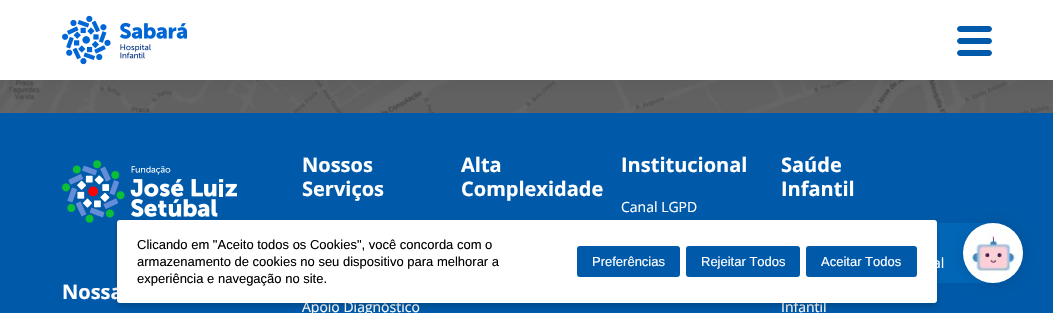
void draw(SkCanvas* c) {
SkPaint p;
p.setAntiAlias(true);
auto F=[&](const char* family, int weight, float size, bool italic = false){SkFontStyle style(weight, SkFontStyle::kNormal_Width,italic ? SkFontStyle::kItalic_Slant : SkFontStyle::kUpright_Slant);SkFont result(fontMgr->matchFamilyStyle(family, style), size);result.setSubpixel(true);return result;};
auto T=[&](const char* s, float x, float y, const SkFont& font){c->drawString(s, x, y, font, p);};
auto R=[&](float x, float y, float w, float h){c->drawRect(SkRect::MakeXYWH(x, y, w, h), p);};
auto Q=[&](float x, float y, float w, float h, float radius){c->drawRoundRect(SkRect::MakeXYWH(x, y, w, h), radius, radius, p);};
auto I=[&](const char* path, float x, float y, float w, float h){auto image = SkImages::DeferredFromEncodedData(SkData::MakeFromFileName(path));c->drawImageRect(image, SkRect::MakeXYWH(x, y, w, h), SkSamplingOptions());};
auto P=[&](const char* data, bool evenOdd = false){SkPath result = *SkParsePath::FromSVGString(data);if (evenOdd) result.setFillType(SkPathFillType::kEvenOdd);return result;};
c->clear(0xffffffff);
I("2.png",0,80,1053,33);
p.setColor(0x0d000000);
p.setMaskFilter(SkMaskFilter::MakeBlur(kNormal_SkBlurStyle, 7.5));
c->drawRect(SkRect::MakeXYWH(0,5,1053,80),p);
p.setMaskFilter(nullptr);
p.setColor(0xffffffff);
R(0,0,1053,80);
I("1.png",62,15,125,50);
p.setColor(0xff005aa9);
c->drawPath(P("M960 26h15v6h-15c-1.5 0-3-1.5-3-3c0-1.5 1.5-3 3-3z"),p);
c->drawPath(P("M974 26h15c1.5 0 3 1.5 3 3c0 1.5-1.5 3-3 3h-15z"),p);
c->drawPath(P("M960 38h15v6h-15c-1.5 0-3-1.5-3-3c0-1.5 1.5-3 3-3z"),p);
c->drawPath(P("M974 38h15c1.5 0 3 1.5 3 3c0 1.5-1.5 3-3 3h-15z"),p);
c->drawPath(P("M960 50h15v6h-15c-1.5 0-3-1.5-3-3c0-1.5 1.5-3 3-3z"),p);
c->drawPath(P("M974 50h15c1.5 0 3 1.5 3 3c0 1.5-1.5 3-3 3h-15z"),p);
R(0,113,1053,200);
I("3.png",62,160,175,63);
auto f1 = F("Open Sans",700,20);
p.setColor(0xffffffff);
T("Nossa",62,299,f1);
T("Nossos",302,172,f1);
T("Serviços",302,196,f1);
auto f2 = F("Open Sans",400,14);
T("Apoio Diagnóstico",302,312,f2);
T("Alta",461,172,f1);
T("Complexidade",461,196,f1);
T("Institucional",621,172,f1);
T("Canal LGPD",621,212,f2);
T("Saúde",781,172,f1);
T("Infantil",781,196,f1);
T("Infantil",781,312,f2);
p.setColor(0xff0166b7);
R(937,223,56,60);
p.setColor(0x33000000);
p.setMaskFilter(SkMaskFilter::MakeBlur(kNormal_SkBlurStyle, 3));
c->drawRoundRect(SkRect::MakeXYWH(117,223,820,83),3,3,p);
p.setMaskFilter(nullptr);
p.setColor(0xffffffff);
Q(117,220,820,83,3);
auto f3 = F("Liberation Sans",400,13);
p.setColor(0xff000000);
T("Clicando em \"Aceito todos os Cookies\", você concorda com o",137,249,f3);
T("armazenamento de cookies no seu dispositivo para melhorar a",137,266,f3);
T("experiência e navegação no site.",137,283,f3);
p.setColor(0xff005aa9);
Q(577,246,103,31,3);
p.setColor(0xffffffff);
T("Preferências",592,266,f3);
p.setColor(0xff005aa9);
Q(686,246,114,31,3);
p.setColor(0xffffffff);
T("Rejeitar Todos",701,266,f3);
p.setColor(0xff005aa9);
Q(806,246,111,31,3);
p.setColor(0xffffffff);
T("Aceitar Todos",821,266,f3);
T("al",933,268,f2);
p.setColor(0x1f000000);
p.setMaskFilter(SkMaskFilter::MakeBlur(kNormal_SkBlurStyle, 7.5));
c->drawRoundRect(SkRect::MakeXYWH(963,224,60,60),30,30,p);
p.setMaskFilter(nullptr);
I("4.png",963,223,60,60);
}
